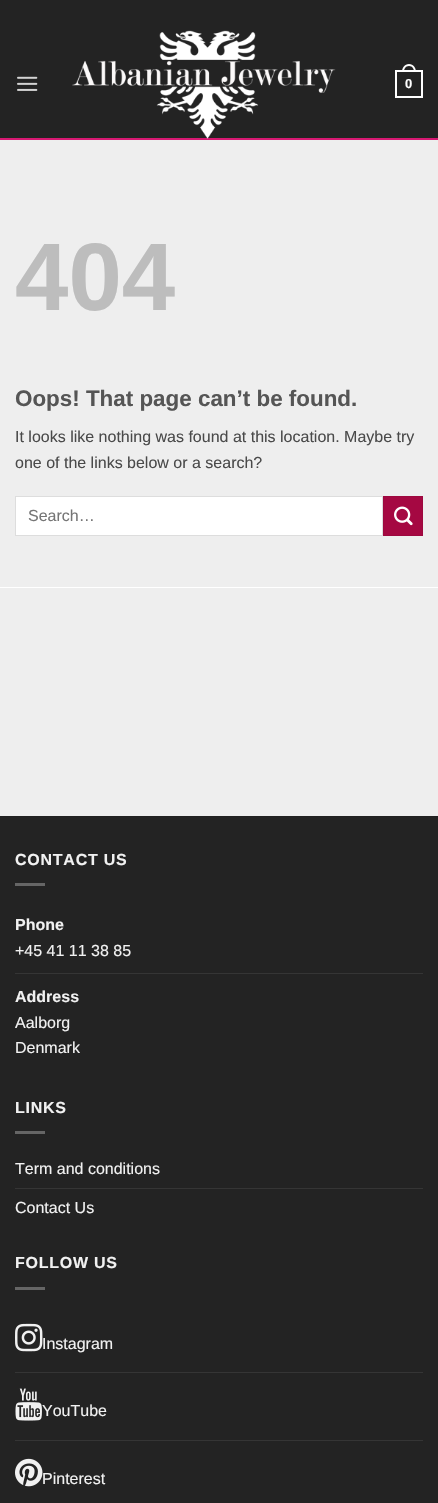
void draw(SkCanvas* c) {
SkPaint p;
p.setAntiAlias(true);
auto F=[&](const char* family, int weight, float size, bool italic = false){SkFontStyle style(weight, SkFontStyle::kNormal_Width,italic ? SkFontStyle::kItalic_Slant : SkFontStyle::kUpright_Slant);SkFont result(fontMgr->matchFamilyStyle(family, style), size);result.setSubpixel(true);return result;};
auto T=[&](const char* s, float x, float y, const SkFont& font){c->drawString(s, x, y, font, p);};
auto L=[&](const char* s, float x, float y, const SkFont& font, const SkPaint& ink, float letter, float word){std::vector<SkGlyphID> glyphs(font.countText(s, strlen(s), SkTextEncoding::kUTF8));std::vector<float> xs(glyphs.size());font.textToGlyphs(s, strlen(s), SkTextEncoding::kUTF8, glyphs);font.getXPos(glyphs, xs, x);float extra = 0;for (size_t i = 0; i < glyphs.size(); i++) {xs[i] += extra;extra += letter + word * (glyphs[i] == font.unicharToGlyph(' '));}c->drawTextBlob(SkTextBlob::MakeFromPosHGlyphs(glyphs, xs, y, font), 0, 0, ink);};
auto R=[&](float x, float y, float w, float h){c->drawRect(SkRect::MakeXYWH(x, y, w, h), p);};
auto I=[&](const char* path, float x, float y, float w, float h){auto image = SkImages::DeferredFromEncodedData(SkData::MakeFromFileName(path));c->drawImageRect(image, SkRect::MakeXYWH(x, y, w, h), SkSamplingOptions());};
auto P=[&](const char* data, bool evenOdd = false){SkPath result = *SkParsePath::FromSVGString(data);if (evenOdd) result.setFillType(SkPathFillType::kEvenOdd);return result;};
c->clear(0xffeeeeee);
p.setColor(0xff232323);
R(0,0,438,138);
p.setColor(0xffd71973);
R(0,138,438,2);
I("1.png",17,76,21,15);
I("2.png",72,30,264,109);
p.setStroke(true);
p.setStrokeWidth(2);
p.setColor(0xffffffff);
c->drawRect(SkRect::MakeXYWH(396,71,26,26),p);
p.setStroke(false);
c->drawPath(P("M409 64c4.5 0 7 4 7 8h-14c0-4 2.5-8 7-8zm0 2c3.5 0 5 3 5 6h-10c0-3 1.5-6 5-6z",true),p);
auto f1 = F("Liberation Sans",700,13);
T("0",405,88,f1);
auto f2 = F("Liberation Sans",700,96);
p.setColor(0xffbdbdbd);
T("404",15,310,f2);
auto f3 = F("Liberation Sans",700,22.4);
p.setColor(0xff555555);
T("Oops! That page can’t be found.",15,406,f3);
auto f4 = F("Liberation Sans",400,16);
p.setColor(0xff4a4a4a);
T("It looks like nothing was found at this location. Maybe try",15,442,f4);
T("one of the links below or a search?",15,468,f4);
p.setColor(0xffffffff);
c->drawRect(SkRect::MakeXYWH(15.5,496.5,367,39),p);
p.setStroke(true);
p.setStrokeWidth(1);
p.setColor(0xffdddddd);
c->drawRect(SkRect::MakeXYWH(15.5,496.5,367,39),p);
p.setStroke(false);
p.setColor(0xff757575);
T("Search…",28,521,f4);
p.setColor(0xffa50842);
c->drawRect(SkRect::MakeXYWH(383.5,496.5,39,39),p);
p.setStroke(true);
p.setColor(0xff9d083f);
c->drawRect(SkRect::MakeXYWH(383.5,496.5,39,39),p);
I("3.png",394,506,19,20);
p.setStroke(false);
p.setColor(0xffffffff);
R(0,587,438,1);
p.setColor(0xff232323);
R(0,817,438,686);
p.setColor(0xff212121);
R(0,816,438,1);
auto f5 = F("Liberation Sans",700,16);
p.setColor(0xfff1f1f1);
L("CONTACT US",15,865,f5,p,.75,0);
p.setColor(0xff656565);
R(15,883,30,3);
p.setColor(0xfff1f1f1);
T("Phone",15,930,f5);
T("+45 41 11 38 85",15,956,f4);
p.setColor(0xff353535);
R(15,973,408,1);
p.setColor(0xfff1f1f1);
T("Address",15,1002,f5);
T("Aalborg",15,1028,f4);
T("Denmark",15,1053,f4);
L("LINKS",15,1113,f5,p,.75,0);
p.setColor(0xff656565);
R(15,1131,30,3);
p.setColor(0xfff1f1f1);
T("Term and conditions",15,1174,f4);
p.setColor(0xff353535);
R(15,1188,408,1);
p.setColor(0xfff1f1f1);
T("Contact Us",15,1213,f4);
L("FOLLOW US",15,1268,f5,p,.75,0);
p.setColor(0xff656565);
R(15,1287,30,3);
I("4.png",15,1323,28,29);
p.setColor(0xfff1f1f1);
T("Instagram",42,1349,f4);
p.setColor(0xff353535);
R(15,1372,408,1);
I("5.png",15,1388,27,33);
p.setColor(0xfff1f1f1);
T("YouTube",42,1416,f4);
p.setColor(0xff353535);
R(15,1440,408,1);
I("6.png",15,1458,28,29);
p.setColor(0xfff1f1f1);
T("Pinterest",42,1484,f4);
}
